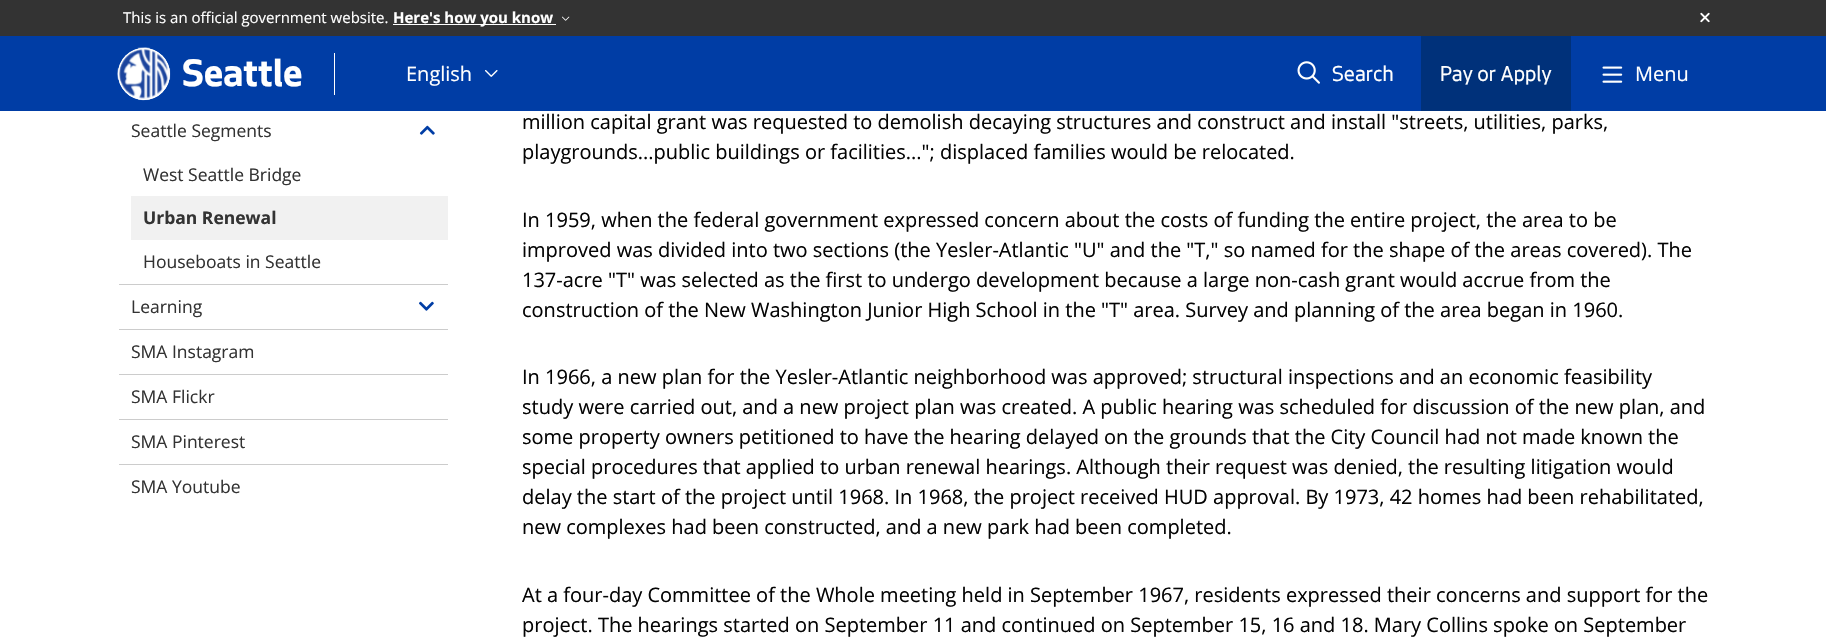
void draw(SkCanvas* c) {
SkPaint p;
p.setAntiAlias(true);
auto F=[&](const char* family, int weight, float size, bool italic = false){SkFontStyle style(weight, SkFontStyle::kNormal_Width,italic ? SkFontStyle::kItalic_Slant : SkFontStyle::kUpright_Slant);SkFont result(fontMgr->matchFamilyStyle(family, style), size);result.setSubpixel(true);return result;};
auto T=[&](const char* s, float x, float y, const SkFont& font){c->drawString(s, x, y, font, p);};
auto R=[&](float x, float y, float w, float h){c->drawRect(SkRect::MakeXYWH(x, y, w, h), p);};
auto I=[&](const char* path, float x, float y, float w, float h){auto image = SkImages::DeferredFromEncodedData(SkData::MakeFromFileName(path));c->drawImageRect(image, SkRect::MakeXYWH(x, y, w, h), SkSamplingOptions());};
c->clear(0xffffffff);
p.setColor(0xff003da5);
R(0,36,1826,75);
p.setColor(0xff333333);
R(0,0,1826,36);
auto f1 = F("Open Sans",400,15);
p.setColor(0xffffffff);
T("This is an official government website.",123,23,f1);
R(393,24,163,1);
auto f2 = F("Open Sans",700,15);
T("Here's how you know",393,23,f2);
I("1.png",562,16,8,5);
I("2.png",1700,12,10,11);
c->drawCircle(144,74,26,p);
I("3.png",117,47,54,54);
p.setStroke(true);
p.setStrokeWidth(1);
c->drawCircle(144,74,25.5,p);
auto f3 = F("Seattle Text",700,40);
p.setStroke(false);
T("Seattle",182,86,f3);
R(334,53,1,42);
auto f4 = F("Open Sans",400,20);
T("English",406,81,f4);
I("4.png",485,70,13,7);
I("5.png",1297,61,23,23);
auto f5 = F("Seattle Text",400,22.5);
T("Search",1332,81,f5);
p.setColor(0xff00317a);
R(1421,36,150,75);
p.setColor(0xffffffff);
T("Pay or Apply",1440,81,f5);
I("6.png",1602,66,21,17);
T("Menu",1635,81,f4);
auto f6 = F("Open Sans",400,17.5);
p.setColor(0xff333333);
T("Seattle Segments",131,137,f6);
I("7.png",419,125,16,10);
T("West Seattle Bridge",143,181,f6);
p.setColor(0xfff1f1f1);
R(131,196,317,44);
auto f7 = F("Open Sans",700,17.5);
p.setColor(0xff333333);
T("Urban Renewal",143,224,f7);
T("Houseboats in Seattle",143,268,f6);
p.setColor(0xffcccccc);
R(119,284,329,1);
p.setColor(0xff333333);
T("Learning",131,313,f6);
I("8.png",419,301,15,10);
p.setColor(0xffcccccc);
R(119,329,329,1);
p.setColor(0xff333333);
T("SMA Instagram",131,358,f6);
p.setColor(0xffcccccc);
R(119,374,329,1);
p.setColor(0xff333333);
T("SMA Flickr",131,403,f6);
p.setColor(0xffcccccc);
R(119,419,329,1);
p.setColor(0xff333333);
T("SMA Pinterest",131,448,f6);
p.setColor(0xffcccccc);
R(119,464,329,1);
p.setColor(0xff333333);
T("SMA Youtube",131,493,f6);
p.setColor(0xff040404);
T("million capital grant was requested to demolish decaying structures and construct and install \"streets, utilities, parks,",522,129,f4);
T("playgrounds...public buildings or facilities...\"; displaced families would be relocated.",522,159,f4);
T("In 1959, when the federal government expressed concern about the costs of funding the entire project, the area to be",522,227,f4);
T("improved was divided into two sections (the Yesler-Atlantic \"U\" and the \"T,\" so named for the shape of the areas covered). The",522,257,f4);
T("137-acre \"T\" was selected as the first to undergo development because a large non-cash grant would accrue from the",522,287,f4);
T("construction of the New Washington Junior High School in the \"T\" area. Survey and planning of the area began in 1960.",522,317,f4);
T("In 1966, a new plan for the Yesler-Atlantic neighborhood was approved; structural inspections and an economic feasibility",522,384,f4);
T("study were carried out, and a new project plan was created. A public hearing was scheduled for discussion of the new plan, and",522,414,f4);
T("some property owners petitioned to have the hearing delayed on the grounds that the City Council had not made known the",522,444,f4);
T("special procedures that applied to urban renewal hearings. Although their request was denied, the resulting litigation would",522,474,f4);
T("delay the start of the project until 1968. In 1968, the project received HUD approval. By 1973, 42 homes had been rehabilitated,",522,504,f4);
T("new complexes had been constructed, and a new park had been completed.",522,534,f4);
T("At a four-day Committee of the Whole meeting held in September 1967, residents expressed their concerns and support for the",522,602,f4);
T("project. The hearings started on September 11 and continued on September 15, 16 and 18. Mary Collins spoke on September",522,632,f4);
}
